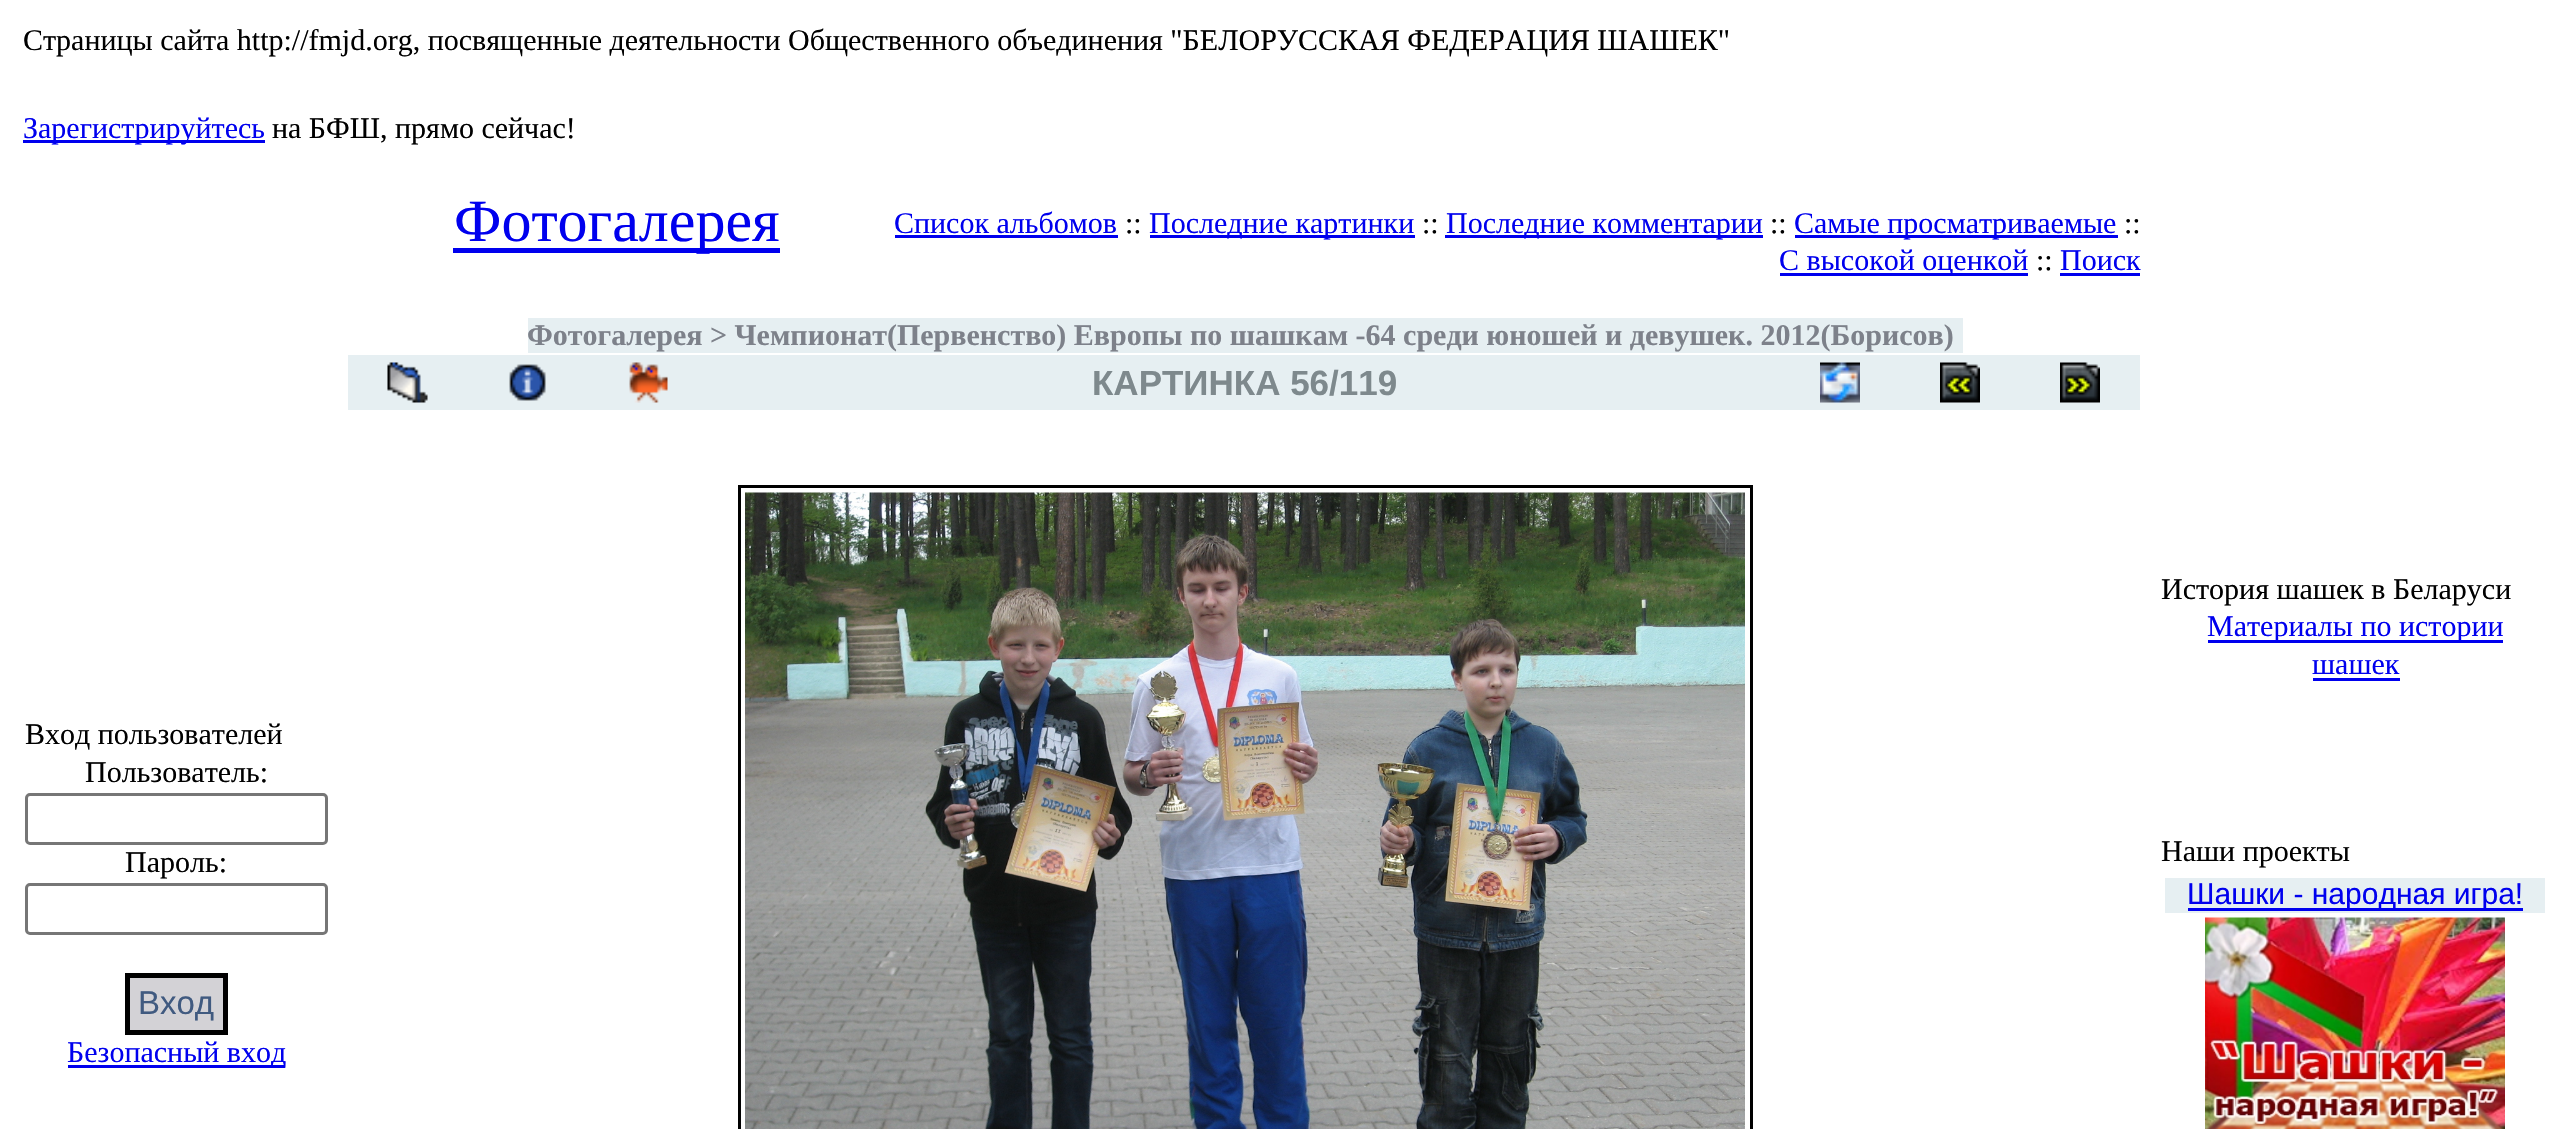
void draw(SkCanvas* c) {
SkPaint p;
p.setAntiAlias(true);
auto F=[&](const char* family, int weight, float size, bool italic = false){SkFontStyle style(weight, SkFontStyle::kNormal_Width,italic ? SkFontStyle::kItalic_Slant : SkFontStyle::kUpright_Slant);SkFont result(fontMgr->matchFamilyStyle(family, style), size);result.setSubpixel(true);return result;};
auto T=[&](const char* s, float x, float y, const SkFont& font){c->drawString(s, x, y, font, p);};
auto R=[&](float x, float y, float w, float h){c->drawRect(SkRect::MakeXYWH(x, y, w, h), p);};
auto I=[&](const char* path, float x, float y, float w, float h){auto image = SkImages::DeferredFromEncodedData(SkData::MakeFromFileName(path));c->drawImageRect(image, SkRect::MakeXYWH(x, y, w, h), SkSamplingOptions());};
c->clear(0xffffffff);
auto f1 = F("Liberation Serif",400,30);
p.setColor(0xff000000);
T("Страницы сайта http://fmjd.org, посвященные деятельности Общественного объединения \"БЕЛОРУССКАЯ ФЕДЕРАЦИЯ ШАШЕК\"",23,50,f1);
p.setColor(0xff0000ee);
R(23,140,242,3);
T("Зарегистрируйтесь",23,138,f1);
p.setColor(0xff000000);
T("на БФШ, прямо сейчас!",272,138,f1);
p.setColor(0xff0000ee);
R(453,248,327,5);
auto f2 = F("Liberation Serif",400,60);
T("Фотогалерея",454,241,f2);
T("Список альбомов",894,233,f1);
R(895,235,223,3);
p.setColor(0xff000000);
T("::",1125,233,f1);
p.setColor(0xff0000ee);
R(1150,235,265,3);
T("Последние картинки",1149,233,f1);
p.setColor(0xff000000);
T("::",1422,233,f1);
p.setColor(0xff0000ee);
R(1445,235,318,3);
T("Последние комментарии",1446,233,f1);
p.setColor(0xff000000);
T("::",1770,233,f1);
p.setColor(0xff0000ee);
R(1795,235,323,3);
T("Самые просматриваемые",1794,233,f1);
p.setColor(0xff000000);
T("::",2124,233,f1);
p.setColor(0xff0000ee);
R(1780,273,248,3);
T("С высокой оценкой",1779,270,f1);
p.setColor(0xff000000);
T("::",2036,270,f1);
p.setColor(0xff0000ee);
T("Поиск",2060,270,f1);
R(2060,273,80,3);
p.setColor(0xffe6eff2);
R(528,318,1435,35);
auto f3 = F("Liberation Serif",700,30);
p.setColor(0xff7d818a);
T("Фотогалерея > Чемпионат(Первенство) Европы по шашкам -64 среди юношей и девушек. 2012(Борисов)",527,345,f3);
p.setColor(0xffe6eff2);
R(348,355,1792,55);
I("1.png",387,362,41,41);
I("2.png",509,364,37,37);
I("3.png",629,362,39,41);
auto f4 = F("Liberation Sans",700,35);
p.setColor(0xff7e898d);
T("КАРТИНКА 56/119",1092,395,f4);
I("4.png",1820,362,40,41);
I("5.png",1940,362,40,41);
I("6.png",2060,362,40,41);
p.setColor(0xff000000);
R(738,485,1015,3);
R(1750,485,3,644);
R(738,485,3,644);
I("7.png",745,492,1000,637);
T("Вход пользователей",25,744,f1);
T("Пользователь:",85,782,f1);
p.setStroke(true);
p.setStrokeWidth(3);
p.setColor(0xff767676);
c->drawRoundRect(SkRect::MakeXYWH(26.5,794.5,300,49),3.5,3.5,p);
p.setStroke(false);
p.setColor(0xff000000);
T("Пароль:",125,872,f1);
p.setStroke(true);
p.setColor(0xff767676);
c->drawRoundRect(SkRect::MakeXYWH(26.5,884.5,300,49),3.5,3.5,p);
p.setStroke(false);
p.setColor(0xffd3d2d6);
c->drawRect(SkRect::MakeXYWH(127.5,975.5,98,57),p);
p.setStroke(true);
p.setStrokeWidth(5);
p.setColor(0xff000000);
c->drawRect(SkRect::MakeXYWH(127.5,975.5,98,57),p);
auto f5 = F("Liberation Sans",400,33);
p.setStroke(false);
p.setColor(0xff405a80);
T("Вход",138,1014,f5);
p.setColor(0xff0000ee);
R(68,1065,217,3);
T("Безопасный вход",67,1062,f1);
p.setColor(0xff000000);
T("История шашек в Беларуси",2161,599,f1);
p.setColor(0xff0000ee);
R(2208,640,295,3);
T("Материалы по истории",2207,636,f1);
T("шашек",2312,674,f1);
R(2313,678,87,3);
p.setColor(0xff000000);
T("Наши проекты",2161,861,f1);
p.setColor(0xffe6eff2);
R(2165,878,380,35);
p.setColor(0xff0000ee);
R(2188,908,335,3);
auto f6 = F("Liberation Sans",400,30);
T("Шашки - народная игра!",2187,904,f6);
I("8.png",2205,917,300,212);
}
